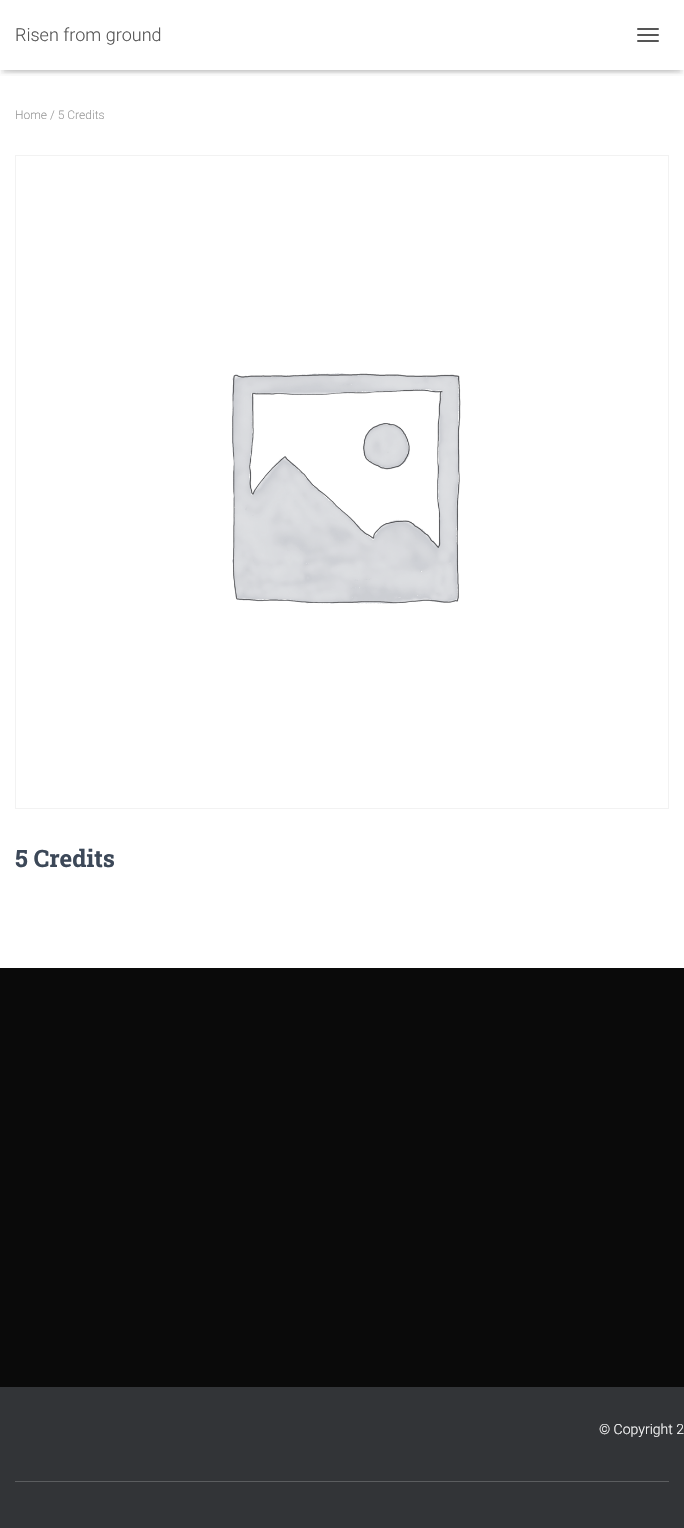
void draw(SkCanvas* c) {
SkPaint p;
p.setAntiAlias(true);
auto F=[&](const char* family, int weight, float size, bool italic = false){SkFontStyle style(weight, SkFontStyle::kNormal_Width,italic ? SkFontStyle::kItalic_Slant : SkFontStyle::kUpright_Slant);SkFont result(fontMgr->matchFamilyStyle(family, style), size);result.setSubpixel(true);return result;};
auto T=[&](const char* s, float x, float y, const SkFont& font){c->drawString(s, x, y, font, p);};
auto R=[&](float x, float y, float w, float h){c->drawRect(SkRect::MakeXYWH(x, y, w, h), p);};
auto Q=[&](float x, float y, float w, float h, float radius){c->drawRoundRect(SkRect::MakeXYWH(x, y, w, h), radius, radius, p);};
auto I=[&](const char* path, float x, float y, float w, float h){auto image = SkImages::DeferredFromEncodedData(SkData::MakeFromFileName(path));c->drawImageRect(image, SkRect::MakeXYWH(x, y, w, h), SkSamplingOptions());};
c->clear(0xff0a0a0a);
p.setColor(0xffffffff);
R(0,0,684,968);
c->save();
c->clipRect(SkRect::MakeXYWH(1,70,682,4));
p.setColor(0x1a000000);
p.setMaskFilter(SkMaskFilter::MakeBlur(kNormal_SkBlurStyle, 2.5));
c->drawRect(SkRect::MakeXYWH(2,6,680,66),p);
p.setMaskFilter(nullptr);
c->restore();
c->save();
c->clipRect(SkRect::MakeXYWH(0,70,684,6));
p.setColor(0x1f000000);
p.setMaskFilter(SkMaskFilter::MakeBlur(kNormal_SkBlurStyle, 5));
c->drawRect(SkRect::MakeXYWH(0,1,684,70),p);
p.setMaskFilter(nullptr);
c->restore();
c->save();
c->clipRect(SkRect::MakeXYWH(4,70,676,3));
p.setColor(0x6b000000);
p.setMaskFilter(SkMaskFilter::MakeBlur(kNormal_SkBlurStyle, 5));
c->drawRect(SkRect::MakeXYWH(6,7,672,58),p);
p.setMaskFilter(nullptr);
c->restore();
auto f1 = F("Roboto",300,18);
p.setColor(0xff555555);
T("Risen from ground",15,41,f1);
Q(637,28,22,2,1);
Q(637,34,22,2,1);
Q(637,40,22,2,1);
auto f2 = F("Roboto",300,12);
p.setColor(0xff999999);
T("Home / 5 Credits",15,119,f2);
p.setStroke(true);
p.setStrokeWidth(1);
p.setColor(0xfff2f2f2);
c->drawRect(SkRect::MakeXYWH(15.5,155.5,653,653),p);
I("1.png",232,373,229,231);
auto f3 = F("Roboto Slab",700,24);
p.setStroke(false);
p.setColor(0xff3c4858);
T("5 Credits",15,867,f3);
p.setColor(0xff323437);
R(0,1387,684,141);
auto f4 = F("Roboto",300,14);
p.setColor(0xffffffff);
T("© Copyright 2",599,1434,f4);
p.setColor(0xff5b5d5f);
R(15,1481,654,1);
}
